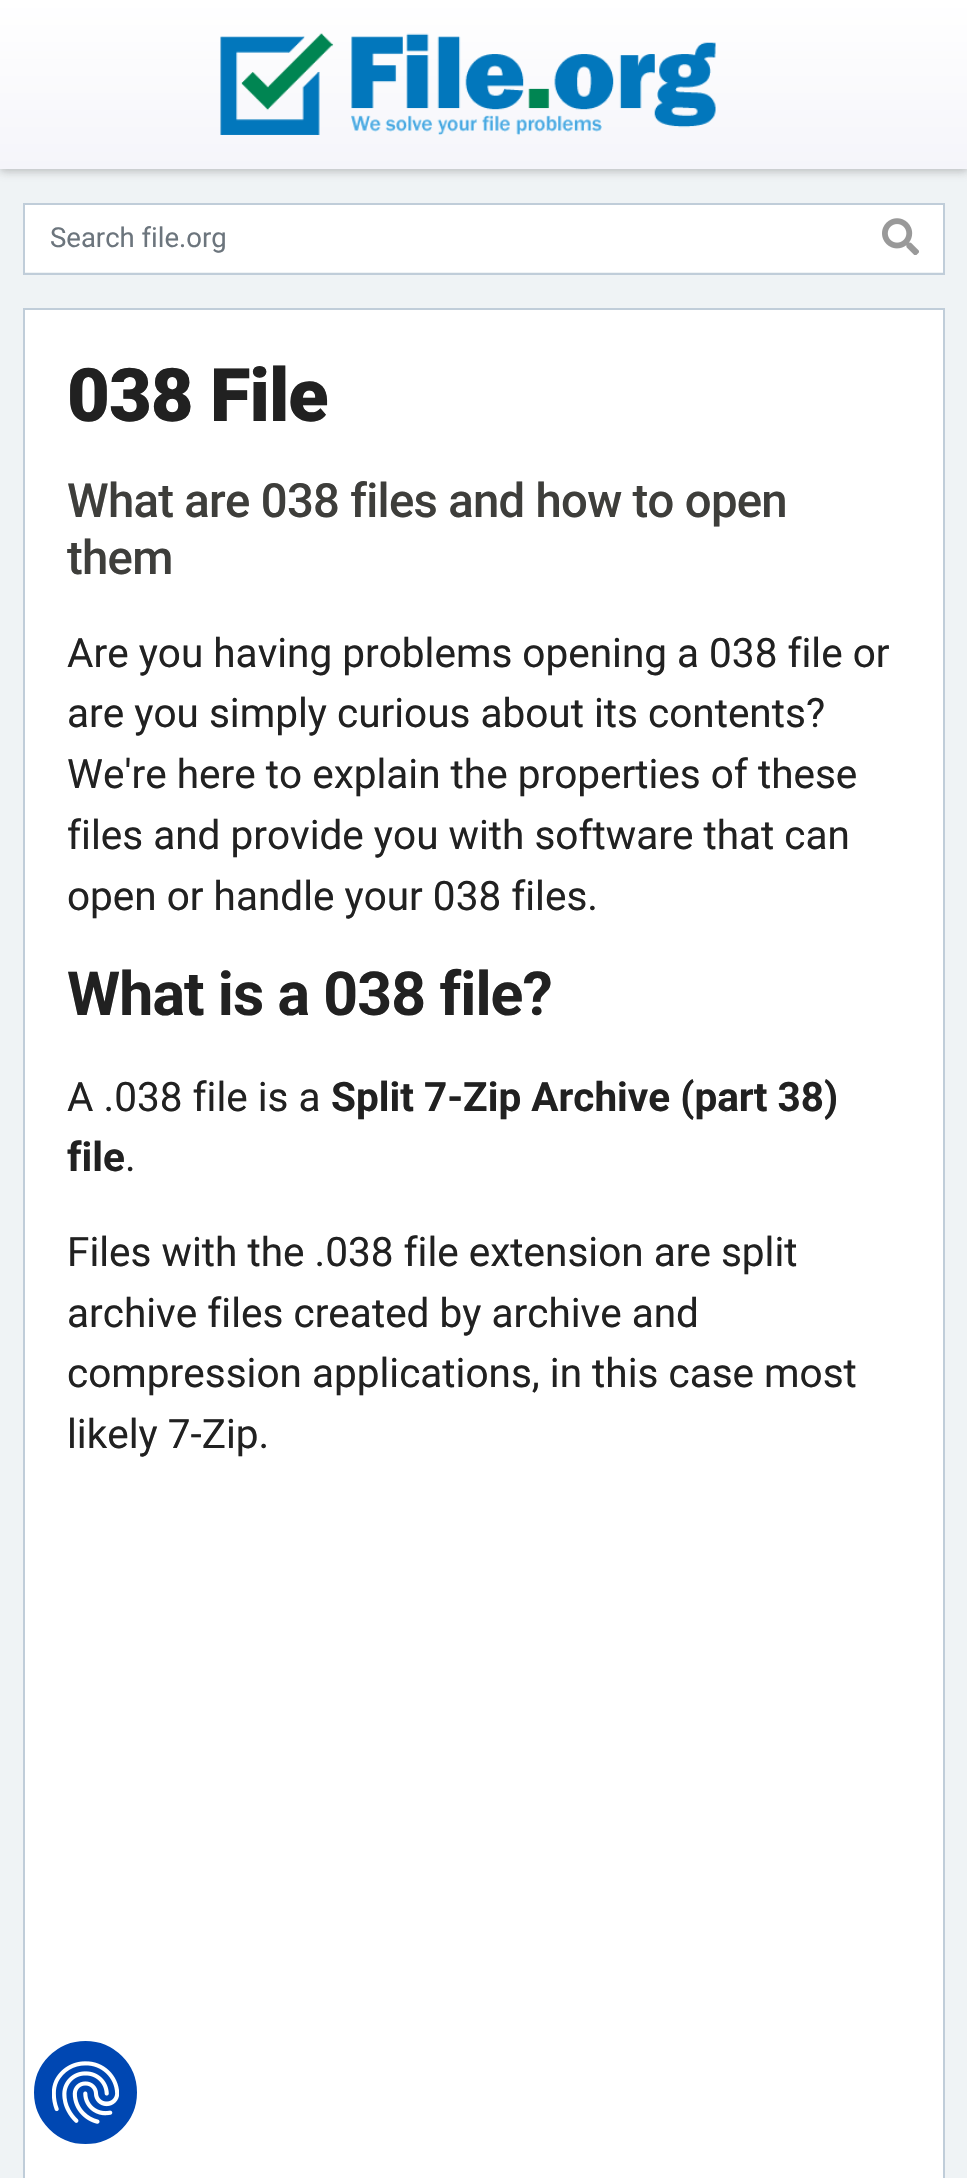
void draw(SkCanvas* c) {
SkPaint p;
p.setAntiAlias(true);
auto F=[&](const char* family, int weight, float size, bool italic = false){SkFontStyle style(weight, SkFontStyle::kNormal_Width,italic ? SkFontStyle::kItalic_Slant : SkFontStyle::kUpright_Slant);SkFont result(fontMgr->matchFamilyStyle(family, style), size);result.setSubpixel(true);return result;};
auto T=[&](const char* s, float x, float y, const SkFont& font){c->drawString(s, x, y, font, p);};
auto L=[&](const char* s, float x, float y, const SkFont& font, const SkPaint& ink, float letter, float word){std::vector<SkGlyphID> glyphs(font.countText(s, strlen(s), SkTextEncoding::kUTF8));std::vector<float> xs(glyphs.size());font.textToGlyphs(s, strlen(s), SkTextEncoding::kUTF8, glyphs);font.getXPos(glyphs, xs, x);float extra = 0;for (size_t i = 0; i < glyphs.size(); i++) {xs[i] += extra;extra += letter + word * (glyphs[i] == font.unicharToGlyph(' '));}c->drawTextBlob(SkTextBlob::MakeFromPosHGlyphs(glyphs, xs, y, font), 0, 0, ink);};
auto R=[&](float x, float y, float w, float h){c->drawRect(SkRect::MakeXYWH(x, y, w, h), p);};
auto I=[&](const char* path, float x, float y, float w, float h){auto image = SkImages::DeferredFromEncodedData(SkData::MakeFromFileName(path));c->drawImageRect(image, SkRect::MakeXYWH(x, y, w, h), SkSamplingOptions());};
c->clear(0xffeff3f5);
p.setColor(0x33787878);
p.setMaskFilter(SkMaskFilter::MakeBlur(kNormal_SkBlurStyle, 4.5));
c->drawRect(SkRect::MakeXYWH(0,5,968,168),p);
p.setMaskFilter(nullptr);
p.setColor(0x26323232);
p.setMaskFilter(SkMaskFilter::MakeBlur(kNormal_SkBlurStyle, 3.5));
c->drawRect(SkRect::MakeXYWH(0,2,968,169),p);
p.setMaskFilter(nullptr);
{
const SkColor colors[] = {0xffffffff,0xfff5f5fa};
const float stops[] = {0,1};
const SkPoint ends[] = {{484,0}, {484,169}};
p.setShader(SkGradientShader::MakeLinear(ends, colors, stops, 2, SkTileMode::kClamp));
p.setAlpha(255);
}
R(0,0,967,169);
I("1.png",220,33,496,102);
p.setShader(nullptr);
p.setColor(0xffffffff);
R(25,205,918,67);
p.setStroke(true);
p.setStrokeWidth(2);
p.setColor(0xffc0cdd9);
c->drawRect(SkRect::MakeXYWH(24,204,920,70),p);
auto f1 = F("Roboto",400,27.5);
p.setStroke(false);
p.setColor(0xff6c757d);
T("Search file.org",50,247,f1);
I("2.png",882,218,37,37);
p.setColor(0xffffffff);
c->drawRect(SkRect::MakeXYWH(24,309,920,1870),p);
p.setStroke(true);
p.setColor(0xffc0cdd9);
c->drawRect(SkRect::MakeXYWH(24,309,920,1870),p);
auto f2 = F("Roboto",900,74);
p.setStroke(false);
p.setColor(0xff212121);
L("038 File",67,421,f2,p,-1,0);
auto f3 = F("Roboto",500,47.25);
p.setColor(0xff3e3e3b);
L("What are 038 files and how to open",67,517,f3,p,-.7,0);
L("them",67,574,f3,p,-.7,0);
auto f4 = F("Roboto",400,40.5);
p.setColor(0xff212121);
T("Are you having problems opening a 038 file or",67,667,f4);
T("are you simply curious about its contents?",67,727,f4);
T("We're here to explain the properties of these",67,788,f4);
T("files and provide you with software that can",67,849,f4);
T("open or handle your 038 files.",67,910,f4);
auto f5 = F("Roboto",700,60.75);
L("What is a 038 file?",67,1015,f5,p,-.9,0);
T("A .038 file is a",67,1111,f4);
auto f6 = F("Roboto",700,40.5);
T("Split 7-Zip Archive (part 38)",331,1111,f6);
T("file",67,1171,f6);
T(".",125,1171,f4);
T("Files with the .038 file extension are split",67,1266,f4);
T("archive files created by archive and",67,1327,f4);
T("compression applications, in this case most",67,1387,f4);
T("likely 7-Zip.",67,1448,f4);
p.setColor(0xff0047b2);
c->drawCircle(85.5,2092.5,50.5,p);
p.setStroke(true);
c->drawCircle(85.5,2092.5,50.5,p);
I("3.png",52,2061,67,63);
}
